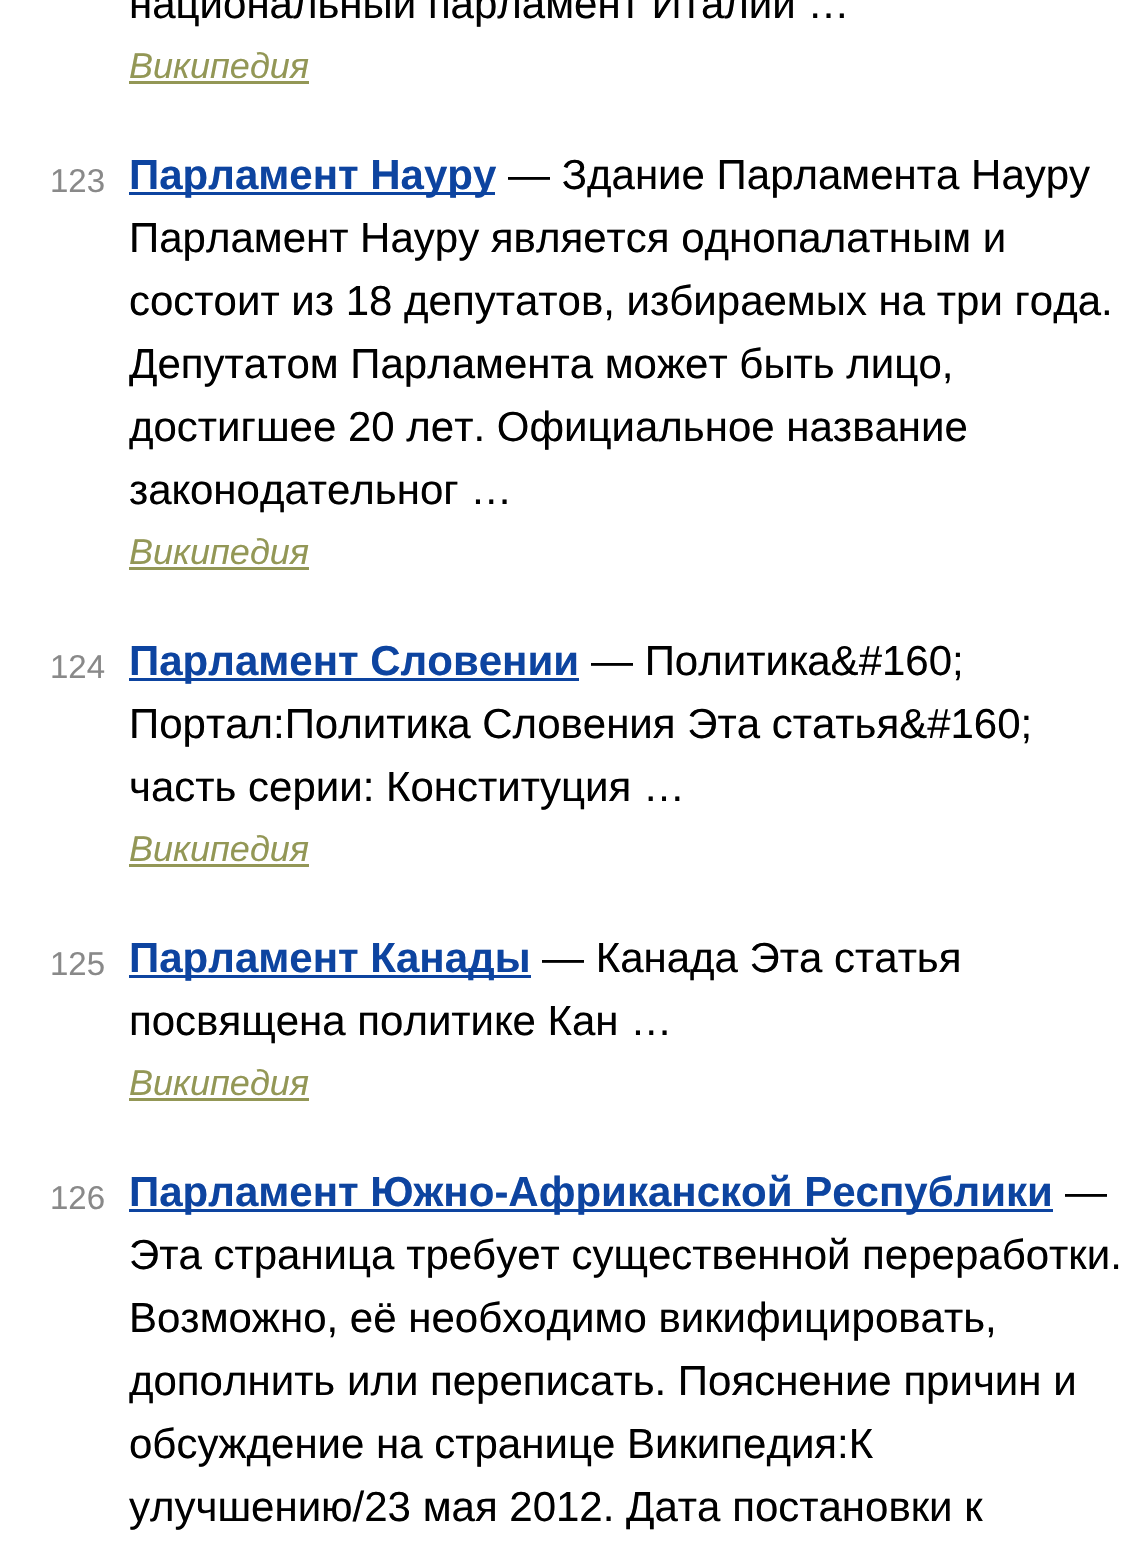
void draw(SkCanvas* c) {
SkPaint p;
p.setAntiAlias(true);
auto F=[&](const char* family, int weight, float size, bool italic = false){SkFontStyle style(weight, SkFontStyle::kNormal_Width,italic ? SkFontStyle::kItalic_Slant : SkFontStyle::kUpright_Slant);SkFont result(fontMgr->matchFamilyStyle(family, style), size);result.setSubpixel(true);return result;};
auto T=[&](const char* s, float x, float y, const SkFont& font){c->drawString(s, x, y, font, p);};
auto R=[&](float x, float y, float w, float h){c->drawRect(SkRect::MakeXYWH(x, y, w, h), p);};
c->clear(0xffffffff);
auto f1 = F("Liberation Sans",400,42);
p.setColor(0xff000000);
T("национальный парламент Италии …",129,18,f1);
auto f2 = F("Liberation Sans",400,36,true);
p.setColor(0xff939756);
T("Википедия",129,78,f2);
R(129,81,180,3);
auto f3 = F("Liberation Sans",400,33);
p.setColor(0xff898989);
T("123",50,192,f3);
p.setColor(0xff0d44a0);
R(129,192,366,3);
auto f4 = F("Liberation Sans",700,42);
T("Парламент Науру",129,189,f4);
p.setColor(0xff000000);
T("— Здание Парламента Науру",508,189,f1);
T("Парламент Науру является однопалатным и",129,252,f1);
T("состоит из 18 депутатов, избираемых на три года.",129,315,f1);
T("Депутатом Парламента может быть лицо,",129,378,f1);
T("достигшее 20 лет. Официальное название",129,441,f1);
T("законодательног …",129,504,f1);
p.setColor(0xff939756);
T("Википедия",129,564,f2);
R(129,567,180,3);
p.setColor(0xff898989);
T("124",50,678,f3);
p.setColor(0xff0d44a0);
R(129,678,450,3);
T("Парламент Словении",129,675,f4);
p.setColor(0xff000000);
T("— Политика&#160;",591,675,f1);
T("Портал:Политика Словения Эта статья&#160;",129,738,f1);
T("часть серии: Конституция …",129,801,f1);
p.setColor(0xff939756);
T("Википедия",129,861,f2);
R(129,864,180,3);
p.setColor(0xff898989);
T("125",50,975,f3);
p.setColor(0xff0d44a0);
R(129,975,402,3);
T("Парламент Канады",129,972,f4);
p.setColor(0xff000000);
T("— Канада Эта статья",542,972,f1);
T("посвящена политике Кан …",129,1035,f1);
p.setColor(0xff939756);
T("Википедия",129,1095,f2);
R(129,1098,180,3);
p.setColor(0xff898989);
T("126",50,1209,f3);
p.setColor(0xff0d44a0);
R(129,1209,924,3);
T("Парламент Южно-Африканской Республики",129,1206,f4);
p.setColor(0xff000000);
T("—",1065,1206,f1);
T("Эта страница требует существенной переработки.",129,1269,f1);
T("Возможно, её необходимо викифицировать,",129,1332,f1);
T("дополнить или переписать. Пояснение причин и",129,1395,f1);
T("обсуждение на странице Википедия:К",129,1458,f1);
T("улучшению/23 мая 2012. Дата постановки к",129,1521,f1);
}
